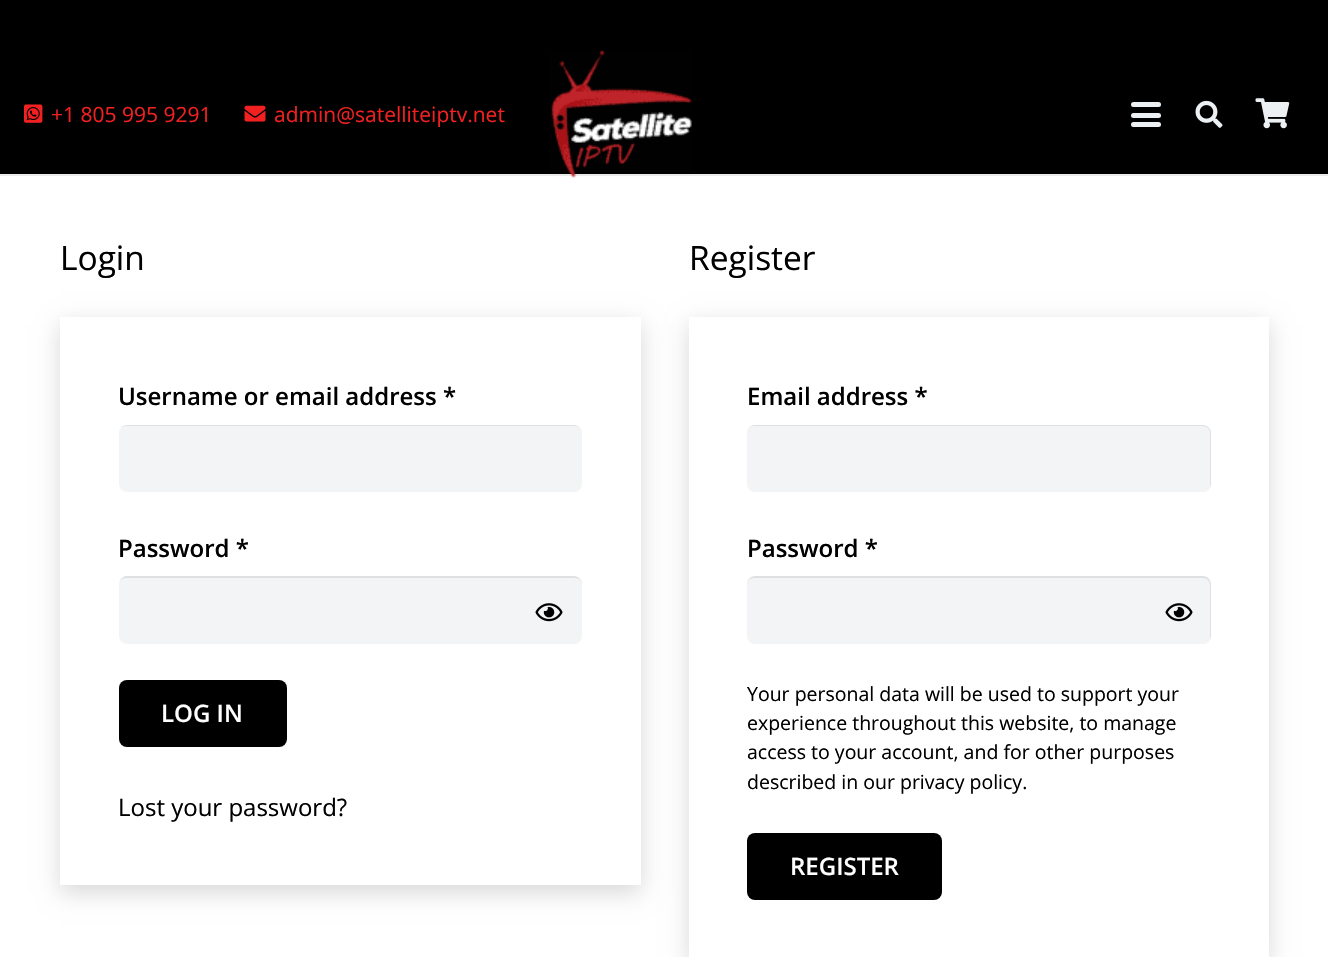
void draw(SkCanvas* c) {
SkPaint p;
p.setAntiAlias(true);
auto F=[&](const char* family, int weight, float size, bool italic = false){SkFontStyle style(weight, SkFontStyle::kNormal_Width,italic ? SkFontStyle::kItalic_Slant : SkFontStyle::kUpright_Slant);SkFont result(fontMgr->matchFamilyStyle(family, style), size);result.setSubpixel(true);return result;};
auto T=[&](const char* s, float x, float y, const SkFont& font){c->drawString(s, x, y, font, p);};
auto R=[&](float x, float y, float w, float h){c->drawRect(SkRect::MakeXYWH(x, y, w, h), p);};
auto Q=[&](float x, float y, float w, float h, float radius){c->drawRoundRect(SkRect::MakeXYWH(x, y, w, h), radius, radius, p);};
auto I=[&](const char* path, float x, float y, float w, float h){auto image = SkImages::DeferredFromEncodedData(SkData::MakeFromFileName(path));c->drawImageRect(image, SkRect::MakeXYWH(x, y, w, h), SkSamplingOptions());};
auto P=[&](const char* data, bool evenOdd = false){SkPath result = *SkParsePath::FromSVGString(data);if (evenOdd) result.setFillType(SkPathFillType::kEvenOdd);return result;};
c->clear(0xffffffff);
p.setColor(0xff000000);
R(0,0,1328,174);
p.setColor(0xffebebeb);
R(0,174,1328,2);
I("1.png",24,104,19,19);
auto f1 = F("Open Sans",400,21);
p.setColor(0xfff12021);
T("+1 805 995 9291",51,122,f1);
I("2.png",244,105,22,17);
T("admin@satelliteiptv.net",274,122,f1);
I("3.png",550,50,142,128);
p.setColor(0xffedf0f2);
Q(1131,113,30,5,2.5);
Q(1131,102,30,5,2.5);
Q(1131,122,30,5,2.5);
I("4.png",1195,100,28,28);
I("5.png",1255,98,35,31);
auto f2 = F("Open Sans",400,33.5);
p.setColor(0xff000000);
T("Login",60,270,f2);
c->save();
c->clipPath(P("M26 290h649v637h-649zm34 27h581v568h-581z",true),true);
p.setColor(0x26000000);
p.setMaskFilter(SkMaskFilter::MakeBlur(kNormal_SkBlurStyle, 11));
c->drawRect(SkRect::MakeXYWH(60,324,581,569),p);
p.setMaskFilter(nullptr);
c->restore();
auto f3 = F("Open Sans",600,24);
p.setColor(0xff000000);
T("Username or email address *",118,405,f3);
p.setColor(0xfff2f4f5);
Q(119,425,463,67,8);
p.setColor(0x14000000);
c->drawPath(P("M126 426h449c4 0 7 3 7 7c0-4-4-8-8-8h-447c-2 0-4 1-6 2c2 0 3-1 5-1z"),p);
p.setColor(0xff000000);
T("Password *",118,557,f3);
p.setColor(0xfff2f4f5);
Q(119,576,463,68,8);
p.setColor(0x14000000);
c->drawPath(P("M126 578h449c4 0 7 3 7 7v-1c0-4-4-8-8-8h-447c-3 0-6 2-7 5c1-2 4-3 6-3z"),p);
I("6.png",535,603,28,19);
p.setColor(0xff000000);
Q(119,680,168,67,8);
p.setColor(0xffffffff);
T("LOG IN",161,722,f3);
auto f4 = F("Open Sans",400,24);
p.setColor(0xff000000);
T("Lost your password?",118,816,f4);
T("Register",689,270,f2);
c->save();
c->clipPath(P("M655 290h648v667h-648zm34 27h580v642h-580z",true),true);
p.setColor(0x26000000);
p.setMaskFilter(SkMaskFilter::MakeBlur(kNormal_SkBlurStyle, 11));
c->drawRect(SkRect::MakeXYWH(689,324,580,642),p);
p.setMaskFilter(nullptr);
c->restore();
p.setColor(0xff000000);
T("Email address *",747,405,f3);
p.setColor(0xfff2f4f5);
Q(747,425,464,67,8);
p.setColor(0xffdfe0e1);
c->drawPath(P("M754 426h449c4 0 7 3 7 7v53v2c0-1 1-2 1-4v-51c0-4-4-8-8-8h-448c-4 0-8 4-8 8c0-4 3-7 7-7z"),p);
p.setColor(0xff000000);
T("Password *",747,557,f3);
p.setColor(0xfff2f4f5);
Q(747,576,464,68,8);
p.setColor(0x14000000);
c->drawPath(P("M754 578h449c4 0 7 3 7 7v53v3c0-2 1-3 1-5v-52c0-4-4-8-8-8h-448c-4 0-8 4-8 8v1c0-4 3-7 7-7z"),p);
I("6.png",1165,603,28,19);
auto f5 = F("Open Sans",400,19.5);
p.setColor(0xff000000);
T("Your personal data will be used to support your",747,701,f5);
T("experience throughout this website, to manage",747,730,f5);
T("access to your account, and for other purposes",747,759,f5);
T("described in our privacy policy.",747,789,f5);
Q(747,833,195,67,8);
p.setColor(0xffffffff);
T("REGISTER",790,875,f3);
}
